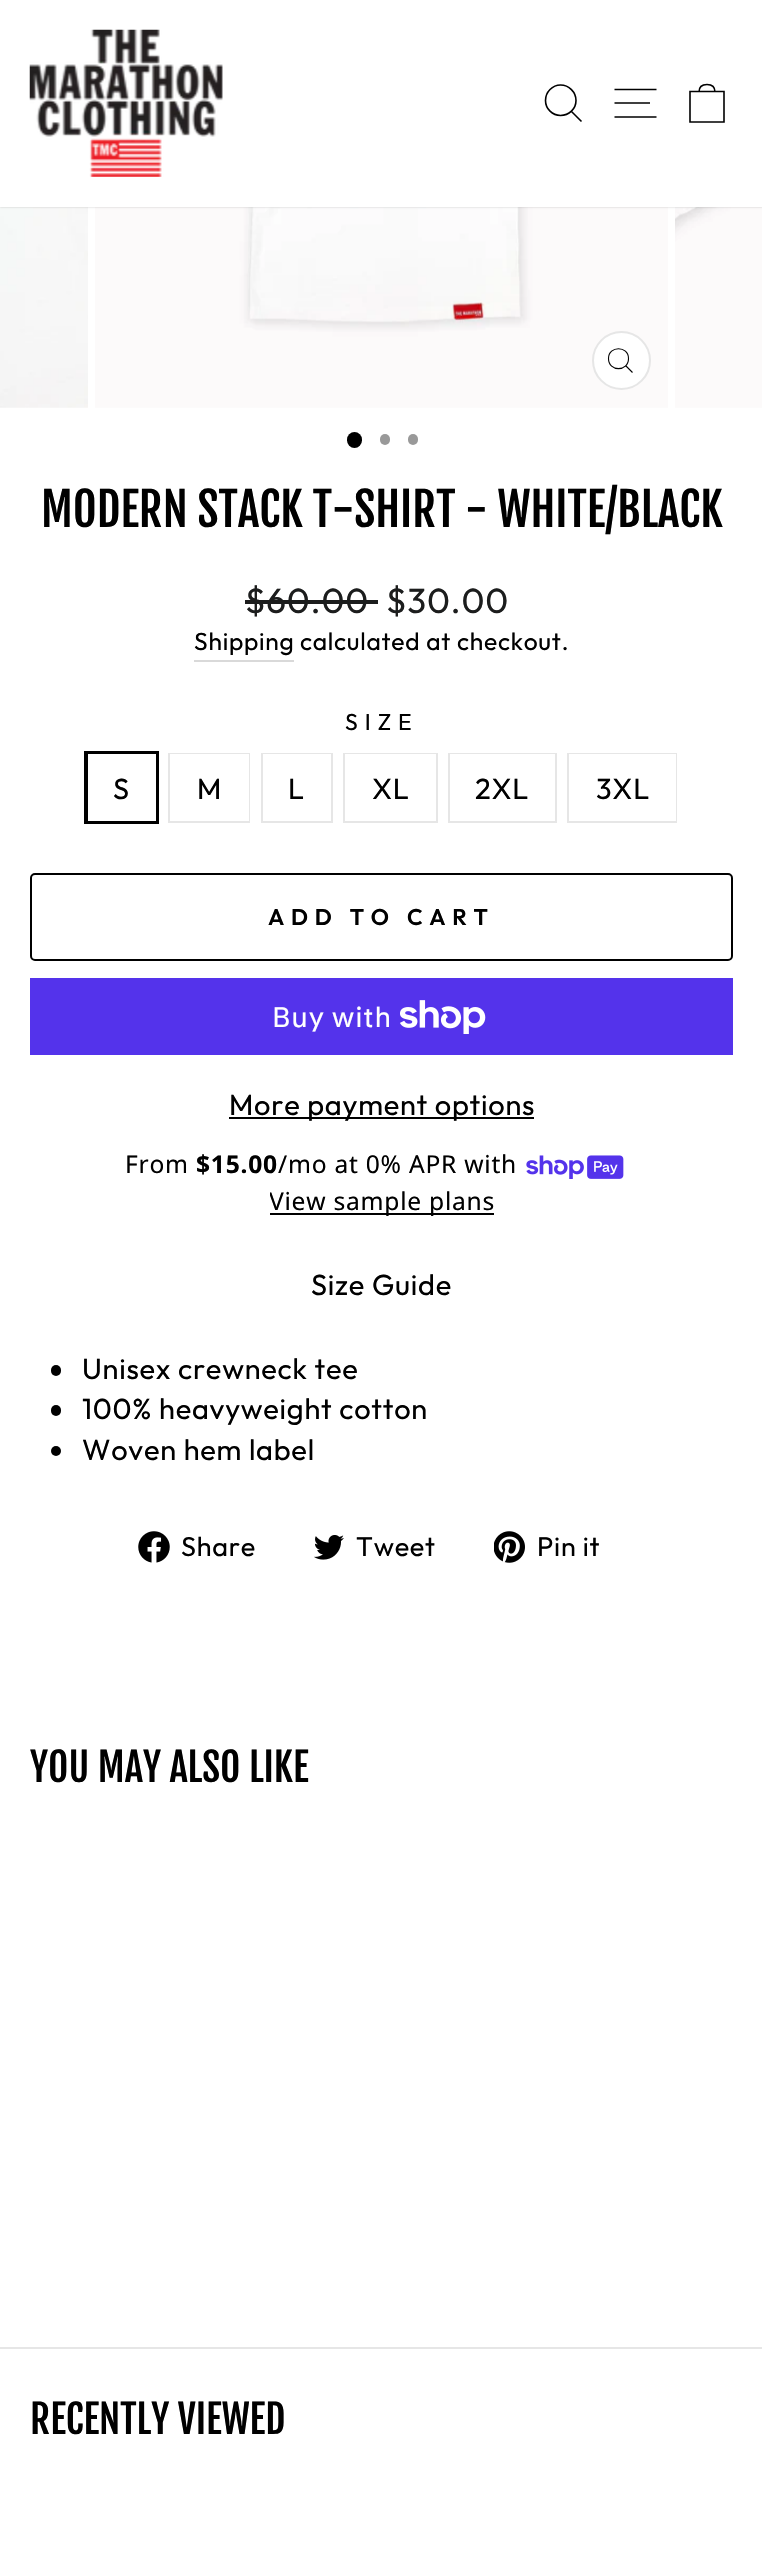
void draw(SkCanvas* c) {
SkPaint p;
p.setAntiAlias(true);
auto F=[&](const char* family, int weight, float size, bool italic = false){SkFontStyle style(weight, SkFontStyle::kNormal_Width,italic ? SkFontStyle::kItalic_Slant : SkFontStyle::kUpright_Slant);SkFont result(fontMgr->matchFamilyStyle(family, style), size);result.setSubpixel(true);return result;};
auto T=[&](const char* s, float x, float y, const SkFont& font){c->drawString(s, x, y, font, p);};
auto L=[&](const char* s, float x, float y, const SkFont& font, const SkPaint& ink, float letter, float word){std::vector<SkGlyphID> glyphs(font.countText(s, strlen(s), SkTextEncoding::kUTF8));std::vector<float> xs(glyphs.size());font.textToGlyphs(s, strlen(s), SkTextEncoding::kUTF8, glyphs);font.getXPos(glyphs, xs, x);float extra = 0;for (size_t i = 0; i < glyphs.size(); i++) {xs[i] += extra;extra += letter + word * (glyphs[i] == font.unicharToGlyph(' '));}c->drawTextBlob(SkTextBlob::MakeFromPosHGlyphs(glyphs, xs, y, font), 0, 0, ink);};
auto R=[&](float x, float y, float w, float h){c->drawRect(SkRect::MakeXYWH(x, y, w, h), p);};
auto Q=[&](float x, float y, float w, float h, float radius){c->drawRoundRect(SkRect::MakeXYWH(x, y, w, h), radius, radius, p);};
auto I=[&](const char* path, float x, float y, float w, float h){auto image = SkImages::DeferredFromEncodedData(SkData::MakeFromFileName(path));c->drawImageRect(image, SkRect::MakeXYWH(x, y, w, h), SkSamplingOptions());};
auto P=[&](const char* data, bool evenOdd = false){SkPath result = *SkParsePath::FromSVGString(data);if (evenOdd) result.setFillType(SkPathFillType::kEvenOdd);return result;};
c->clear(0xffffffff);
I("2.png",0,207,88,201);
I("3.png",95,207,573,201);
I("4.png",675,207,87,201);
p.setColor(0x33000000);
p.setMaskFilter(SkMaskFilter::MakeBlur(kNormal_SkBlurStyle, 1));
c->drawRect(SkRect::MakeXYWH(0,0,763,207),p);
p.setMaskFilter(nullptr);
p.setColor(0xffffffff);
R(0,0,762,207);
I("1.png",29,29,194,148);
p.setStroke(true);
p.setStrokeWidth(1.6);
p.setColor(0xff000000);
c->drawPath(P("M576 100.5c0 8.5-7 15-15.5 15c-8 0-15-6.5-15-15c0-8.5 7-15.5 15-15.5c8.5 0 15.5 7 15.5 15.5zm5.5 21l-10-10"),p);
c->drawPath(P("M614.5 89.5h42m-42 13.5h35.5m-35.5 14h42"),p);
c->drawPath(P("M690 91.5h34v30.5h-34zm9 .5c0-6 3.5-7.5 8-7.5c4.5 0 8 1.5 8 7.5"),p);
p.setStroke(false);
p.setColor(0xffffffff);
c->drawCircle(621.5,360.5,28.5,p);
p.setStroke(true);
p.setStrokeWidth(2);
p.setColor(0xffe6e6e6);
c->drawCircle(621.5,360.5,28.5,p);
p.setStrokeWidth(1.1);
p.setColor(0xff000000);
c->drawPath(P("M628.5 358.5c0 13.5-20 13.5-20 0c0-13 20-13 20 0zm4 14l-6.5-6.5"),p);
p.setStroke(false);
Q(347,432,15,16,7.5);
p.setColor(0xff999999);
Q(380,434,10,11,5);
Q(408,434,10,11,5);
auto f1 = F("Fjalla One",400,46);
p.setColor(0xff000000);
T("MODERN STACK T-SHIRT - WHITE/BLACK",41,527,f1);
auto f2 = F("Outfit",400,35);
p.setColor(0xff1c1d1d);
L("$60.00",245,613,f2,p,.75,0);
R(245,600,133,4);
L("$30.00",386,613,f2,p,.75,0);
p.setColor(0xffd9d9d9);
R(194,660,100,2);
auto f3 = F("Outfit",400,24.6);
p.setColor(0xff000000);
L("Shipping",194,650,f3,p,.75,0);
L("calculated at checkout.",300,650,f3,p,.75,0);
auto f4 = F("Outfit",400,23);
L("SIZE",345,730,f4,p,7,0);
p.setStroke(true);
p.setStrokeWidth(4);
c->drawRect(SkRect::MakeXYWH(86,753,71,69),p);
p.setStroke(false);
p.setColor(0xffffffff);
R(88,754,68,67);
auto f5 = F("Outfit",400,29);
p.setColor(0xff000000);
L("S",113,799,f5,p,.75,0);
p.setStroke(true);
p.setStrokeWidth(2);
p.setColor(0xffe6e6e6);
c->drawRect(SkRect::MakeXYWH(169,754,80,68),p);
p.setStroke(false);
p.setColor(0xffffffff);
R(170,754,79,67);
p.setColor(0xff000000);
L("M",197,799,f5,p,.75,0);
p.setStroke(true);
p.setColor(0xffe6e6e6);
c->drawRect(SkRect::MakeXYWH(262,754,70,68),p);
p.setStroke(false);
p.setColor(0xffffffff);
R(263,754,68,1);
p.setColor(0xff000000);
L("L",288,799,f5,p,.75,0);
p.setStroke(true);
p.setColor(0xffe6e6e6);
c->drawRect(SkRect::MakeXYWH(344,754,93,68),p);
p.setStroke(false);
p.setColor(0xffffffff);
R(345,754,91,1);
p.setColor(0xff000000);
L("XL",372,799,f5,p,.75,0);
p.setStroke(true);
p.setColor(0xffe6e6e6);
c->drawRect(SkRect::MakeXYWH(449,754,107,68),p);
p.setStroke(false);
p.setColor(0xffffffff);
R(450,754,105,1);
p.setColor(0xff000000);
L("2XL",475,799,f5,p,.75,0);
p.setStroke(true);
p.setColor(0xffe6e6e6);
c->drawRect(SkRect::MakeXYWH(568,754,108,68),p);
p.setStroke(false);
p.setColor(0xffffffff);
R(569,754,107,67);
p.setColor(0xff000000);
L("3XL",596,799,f5,p,.75,0);
p.setStroke(true);
c->drawRoundRect(SkRect::MakeXYWH(31,874,701,86),4,4,p);
auto f6 = F("Outfit",600,22.75);
p.setStroke(false);
L("ADD TO CART",268,925,f6,p,6.75,0);
p.setColor(0xff5433eb);
R(30,978,703,77);
auto f7 = F("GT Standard",400,28);
p.setColor(0xffffffff);
L("Buy with",272,1027,f7,p,.75,0);
I("5.png",400,1000,86,34);
p.setColor(0xff000000);
R(229,1117,305,2);
L("More payment options",229,1115,f5,p,.75,0);
auto f8 = F("Noto Sans",400,24.6);
L("From",125,1173,f8,p,.75,0);
auto f9 = F("Noto Sans",700,24.6);
L("$15.00",196,1173,f9,p,.75,0);
L("/mo at 0% APR with",278,1173,f8,p,.75,0);
I("6.png",526,1155,98,24);
R(270,1213,224,2);
c->save();
c->clipRect(SkRect::MakeXYWH(270,1183,224,37));
L("View sample plans",269,1210,f8,p,.75,0);
c->restore();
L("Size Guide",311,1295,f5,p,.75,0);
Q(51,1365,10,11,5);
L("Unisex crewneck tee",82,1379,f5,p,.75,0);
Q(51,1405,10,11,5);
L("100% heavyweight cotton",82,1419,f5,p,.75,0);
c->drawCircle(56,1451,5,p);
L("Woven hem label",82,1460,f5,p,.75,0);
I("7.png",138,1531,32,32);
auto f10 = F("Outfit",400,27);
L("Share",181,1556,f10,p,.75,0);
I("8.png",314,1535,30,25);
L("Tweet",356,1556,f10,p,.75,0);
I("9.png",494,1531,31,32);
L("Pin it",537,1556,f10,p,.75,0);
auto f11 = F("Fjalla One",400,39);
T("YOU MAY ALSO LIKE",30,1782,f11);
p.setColor(0xffe6e6e6);
R(0,2347,762,2);
p.setColor(0xff000000);
T("RECENTLY VIEWED",30,2434,f11);
}
